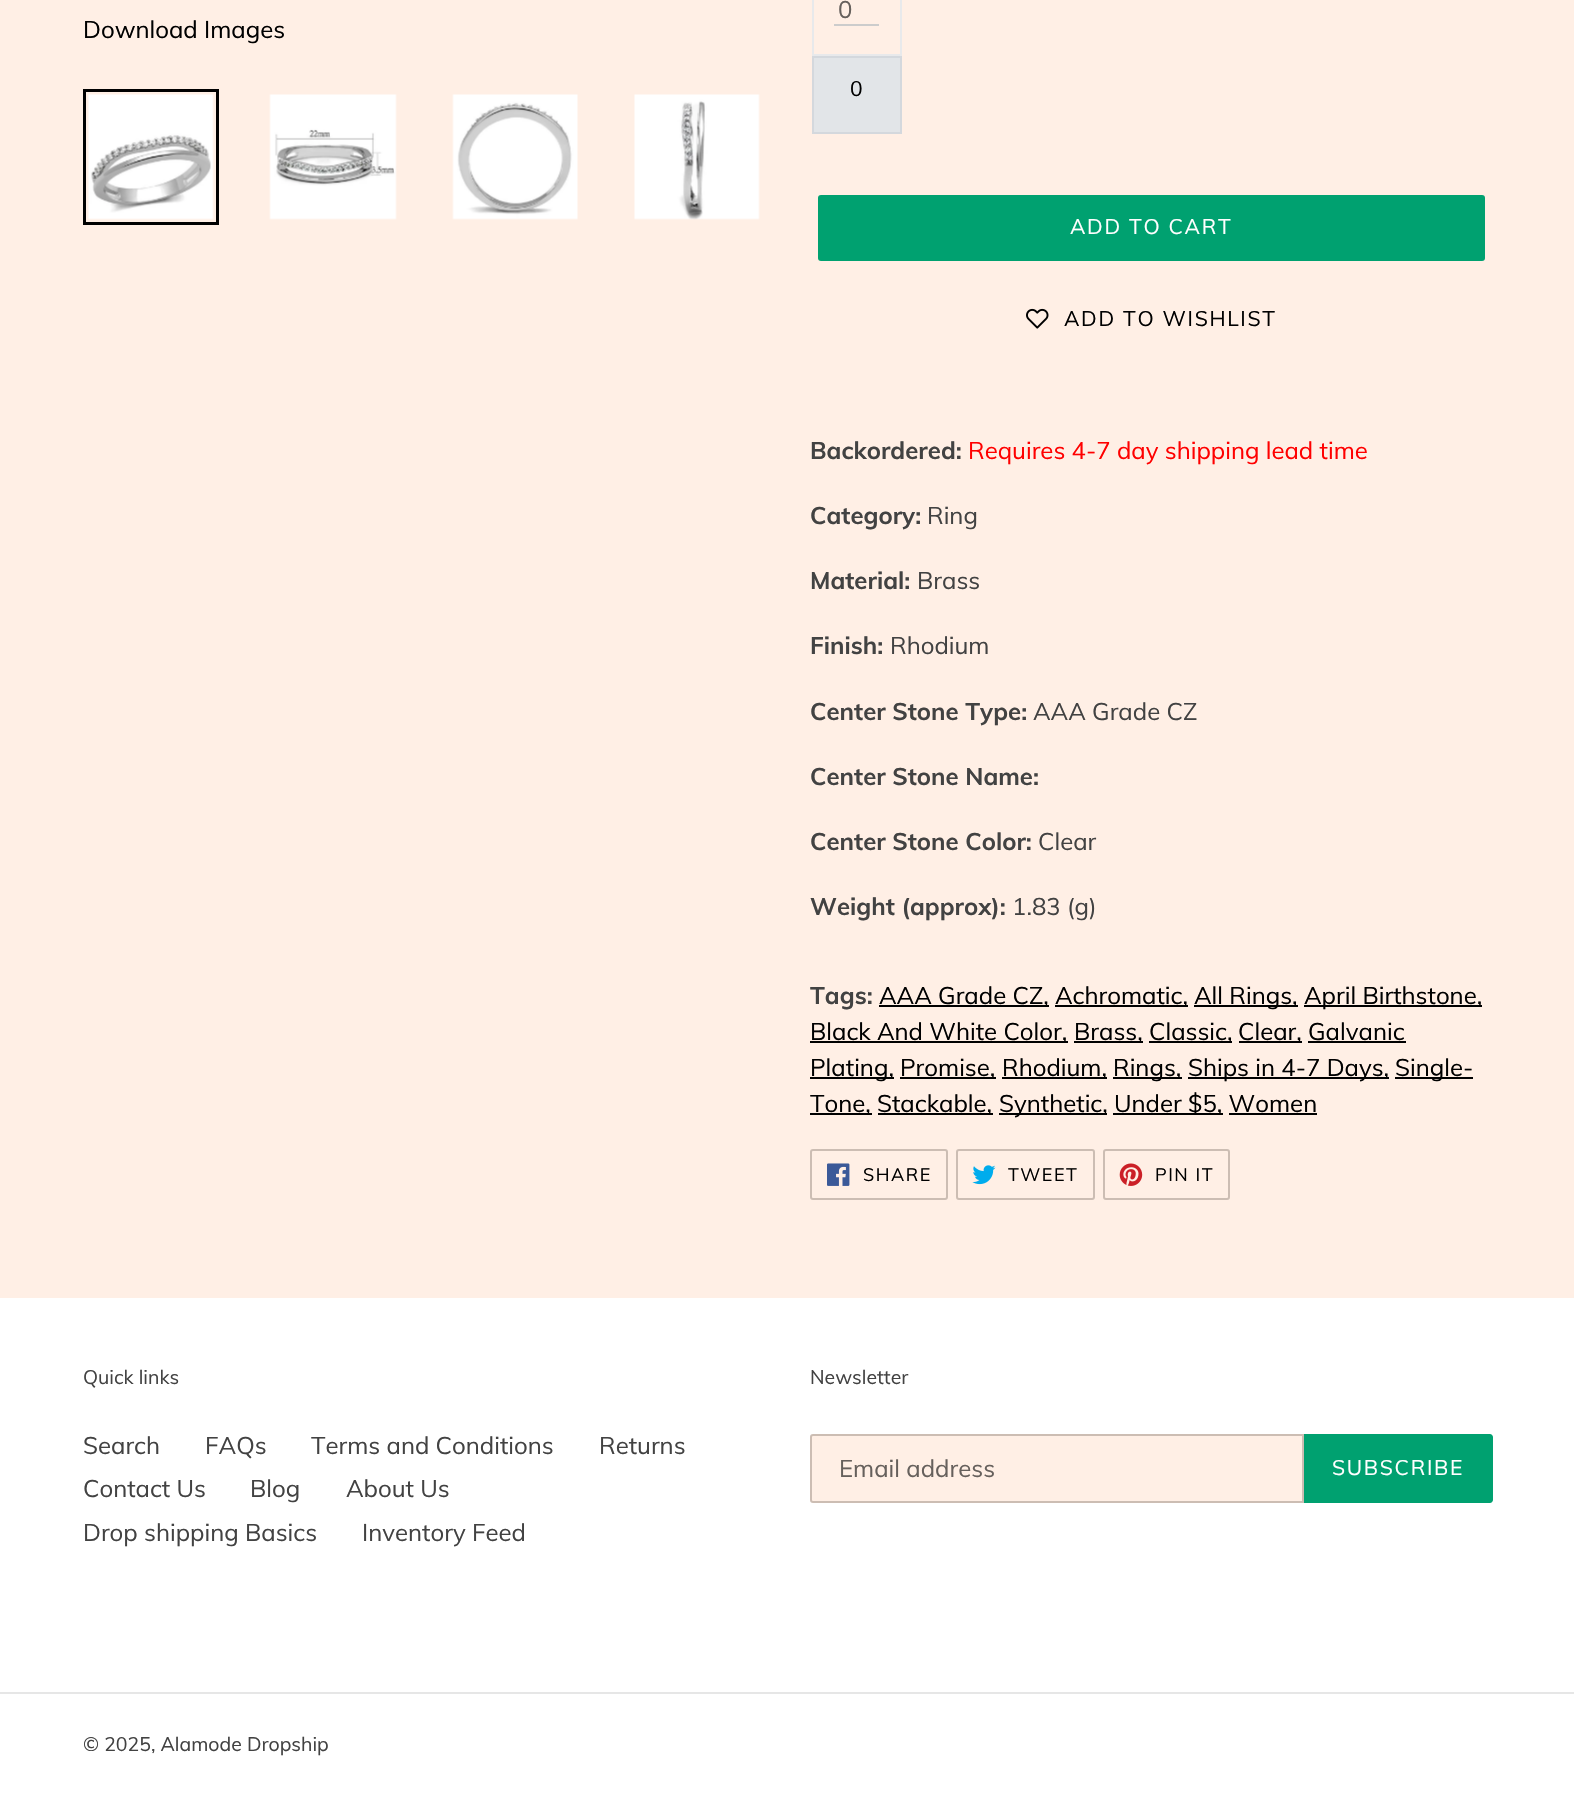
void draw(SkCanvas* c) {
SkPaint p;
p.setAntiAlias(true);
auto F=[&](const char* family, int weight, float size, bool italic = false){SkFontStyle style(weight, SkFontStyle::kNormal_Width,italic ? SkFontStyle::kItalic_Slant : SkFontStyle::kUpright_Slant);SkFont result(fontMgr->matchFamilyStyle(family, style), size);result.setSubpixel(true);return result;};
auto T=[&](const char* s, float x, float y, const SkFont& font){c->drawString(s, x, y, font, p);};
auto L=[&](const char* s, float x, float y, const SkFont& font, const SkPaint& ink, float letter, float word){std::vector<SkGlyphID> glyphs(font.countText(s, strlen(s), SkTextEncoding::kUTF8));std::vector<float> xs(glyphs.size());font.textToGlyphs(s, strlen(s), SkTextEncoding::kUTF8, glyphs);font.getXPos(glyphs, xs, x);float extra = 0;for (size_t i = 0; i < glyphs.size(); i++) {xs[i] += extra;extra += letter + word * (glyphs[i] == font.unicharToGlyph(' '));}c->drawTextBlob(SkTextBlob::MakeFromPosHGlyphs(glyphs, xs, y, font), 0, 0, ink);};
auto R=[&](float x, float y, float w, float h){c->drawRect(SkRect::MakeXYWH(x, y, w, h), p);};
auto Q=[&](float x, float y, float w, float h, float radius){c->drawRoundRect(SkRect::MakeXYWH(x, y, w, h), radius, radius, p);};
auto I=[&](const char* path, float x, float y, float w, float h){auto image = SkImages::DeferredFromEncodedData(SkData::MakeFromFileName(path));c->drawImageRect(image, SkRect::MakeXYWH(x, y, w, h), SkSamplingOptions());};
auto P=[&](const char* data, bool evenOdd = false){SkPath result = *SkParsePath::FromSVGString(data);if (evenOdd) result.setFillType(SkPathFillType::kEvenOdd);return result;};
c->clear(0xffffefe5);
auto f1 = F("Muli",400,24);
p.setColor(0xff000000);
T("Download Images",83,38,f1);
p.setStroke(true);
p.setStrokeWidth(3);
c->drawRect(SkRect::MakeXYWH(84.5,90.5,133,133),p);
I("1.png",88,94,126,126);
I("2.png",269,94,128,126);
I("3.png",452,94,126,126);
I("4.png",634,94,126,126);
p.setStrokeWidth(2);
p.setColor(0xffe8e9eb);
c->drawRect(SkRect::MakeXYWH(813,-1,88,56),p);
p.setStroke(false);
p.setColor(0xffcccccc);
R(834,24,45,2);
p.setColor(0xff66605c);
T("0",838,18,f1);
p.setColor(0xffe2e5e8);
c->drawRect(SkRect::MakeXYWH(813,57,88,76),p);
p.setStroke(true);
p.setColor(0xffd4d8dd);
c->drawRect(SkRect::MakeXYWH(813,57,88,76),p);
auto f2 = F("Muli",400,21);
p.setStroke(false);
p.setColor(0xff000000);
T("0",850,96,f2);
p.setColor(0xff00a170);
Q(818,195,667,66,3);
p.setColor(0xffffffff);
L("ADD TO CART",1070,234,f2,p,1.7,0);
I("5.png",1026,308,23,21);
p.setColor(0xff000000);
L("ADD TO WISHLIST",1064,326,f2,p,1.7,0);
auto f3 = F("Muli",700,24);
p.setColor(0xff424242);
T("Backordered:",810,459,f3);
p.setColor(0xffff0000);
T("Requires 4-7 day shipping lead time",968,459,f1);
p.setColor(0xff424242);
T("Category:",810,524,f3);
T("Ring",927,524,f1);
T("Material:",810,589,f3);
T("Brass",917,589,f1);
T("Finish:",810,654,f3);
T("Rhodium",890,654,f1);
T("Center Stone Type:",810,720,f3);
T("AAA Grade CZ",1033,720,f1);
T("Center Stone Name:",810,785,f3);
T("Center Stone Color:",810,850,f3);
T("Clear",1038,850,f1);
T("Weight (approx):",810,915,f3);
T("1.83 (g)",1012,915,f1);
T("Tags:",810,1004,f3);
p.setColor(0xff000000);
R(879,1005,170,2);
T("AAA Grade CZ,",879,1004,f1);
R(1055,1005,133,2);
T("Achromatic,",1055,1004,f1);
R(1194,1005,104,2);
T("All Rings,",1194,1004,f1);
R(1304,1005,178,2);
T("April Birthstone,",1304,1004,f1);
R(810,1041,258,2);
T("Black And White Color,",810,1040,f1);
R(1074,1041,69,2);
T("Brass,",1074,1040,f1);
R(1149,1041,83,2);
T("Classic,",1149,1040,f1);
R(1239,1041,63,2);
T("Clear, Galvanic",1238,1040,f1);
R(810,1077,84,2);
T("Plating,",810,1076,f1);
R(1308,1041,98,2);
R(900,1077,96,2);
T("Promise,",900,1076,f1);
R(1002,1077,105,2);
T("Rhodium,",1002,1076,f1);
R(1113,1077,69,2);
T("Rings,",1113,1076,f1);
R(1188,1077,201,2);
T("Ships in 4-7 Days,",1188,1076,f1);
R(1395,1077,78,2);
T("Single-",1395,1076,f1);
R(810,1113,62,2);
T("Tone,",810,1112,f1);
R(878,1113,115,2);
T("Stackable,",877,1112,f1);
R(999,1113,108,2);
T("Synthetic,",999,1112,f1);
R(1113,1113,110,2);
T("Under $5, Women",1114,1112,f1);
R(1229,1113,88,2);
p.setStroke(true);
p.setColor(0xffccbdb3);
c->drawRoundRect(SkRect::MakeXYWH(811,1150,136,49),2,2,p);
I("6.png",827,1163,23,23);
auto f4 = F("Muli",400,18);
p.setStroke(false);
p.setColor(0xff000000);
L("SHARE",863,1181,f4,p,1.5,0);
p.setStroke(true);
p.setColor(0xffccbdb3);
c->drawRoundRect(SkRect::MakeXYWH(957,1150,137,49),2,2,p);
I("7.png",972,1165,24,20);
p.setStroke(false);
p.setColor(0xff000000);
L("TWEET",1008,1181,f4,p,1.5,0);
p.setStroke(true);
p.setColor(0xffccbdb3);
c->drawRoundRect(SkRect::MakeXYWH(1104,1150,125,49),2,2,p);
I("8.png",1119,1163,24,23);
p.setStroke(false);
p.setColor(0xff000000);
L("PIN IT",1155,1181,f4,p,1.5,0);
p.setColor(0xffffffff);
R(0,1298,1574,514);
auto f5 = F("Muli",400,19.5);
p.setColor(0xff424242);
T("Quick links",83,1384,f5);
T("Search",83,1454,f1);
T("FAQs",205,1454,f1);
T("Terms and Conditions",311,1454,f1);
T("Returns",599,1454,f1);
T("Contact Us",83,1497,f1);
T("Blog",250,1497,f1);
T("About Us",346,1497,f1);
T("Drop shipping Basics",83,1541,f1);
T("Inventory Feed",362,1541,f1);
T("Newsletter",810,1384,f5);
p.setColor(0xffffefe5);
c->drawPath(P("M813 1435h490v67h-490c-1 0-2-1-2-2v-63c0-1 1-2 2-2z"),p);
p.setStroke(true);
p.setColor(0xffccbdb3);
c->drawPath(P("M813 1435h490v67h-490c-1 0-2-1-2-2v-63c0-1 1-2 2-2z"),p);
p.setStroke(false);
p.setColor(0xff66605c);
T("Email address",839,1477,f1);
p.setColor(0xff00a170);
c->drawPath(P("M1304 1434h186c1.5 0 3 1.5 3 3v63c0 1.5-1.5 3-3 3h-186z"),p);
p.setColor(0xffffffff);
L("SUBSCRIBE",1332,1475,f2,p,1.7,0);
p.setColor(0xffe6e6e6);
R(0,1692,1574,2);
p.setColor(0xff424242);
T("© 2025, Alamode Dropship",83,1751,f5);
}
